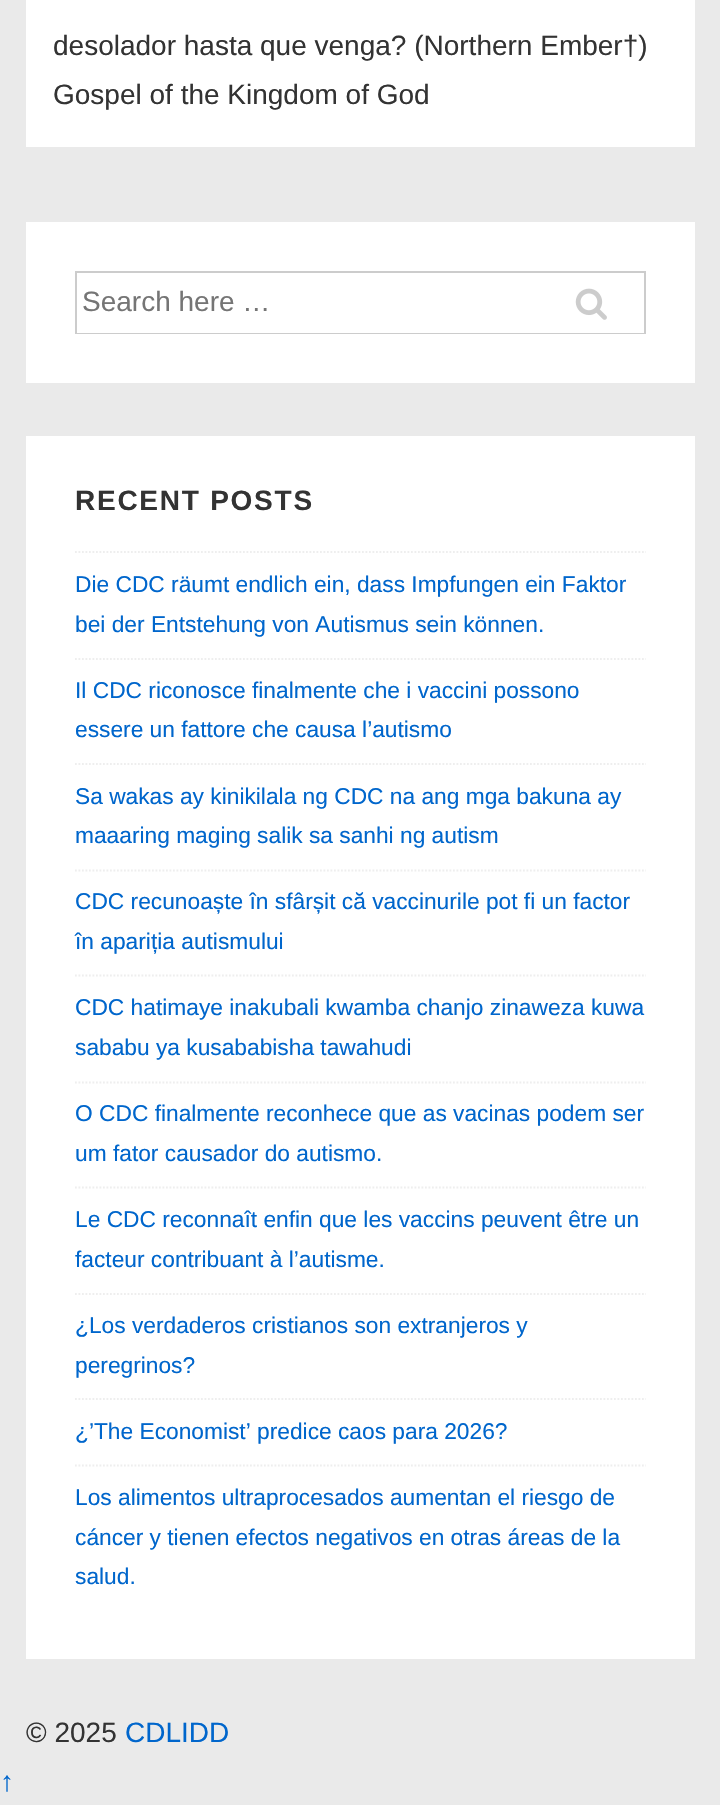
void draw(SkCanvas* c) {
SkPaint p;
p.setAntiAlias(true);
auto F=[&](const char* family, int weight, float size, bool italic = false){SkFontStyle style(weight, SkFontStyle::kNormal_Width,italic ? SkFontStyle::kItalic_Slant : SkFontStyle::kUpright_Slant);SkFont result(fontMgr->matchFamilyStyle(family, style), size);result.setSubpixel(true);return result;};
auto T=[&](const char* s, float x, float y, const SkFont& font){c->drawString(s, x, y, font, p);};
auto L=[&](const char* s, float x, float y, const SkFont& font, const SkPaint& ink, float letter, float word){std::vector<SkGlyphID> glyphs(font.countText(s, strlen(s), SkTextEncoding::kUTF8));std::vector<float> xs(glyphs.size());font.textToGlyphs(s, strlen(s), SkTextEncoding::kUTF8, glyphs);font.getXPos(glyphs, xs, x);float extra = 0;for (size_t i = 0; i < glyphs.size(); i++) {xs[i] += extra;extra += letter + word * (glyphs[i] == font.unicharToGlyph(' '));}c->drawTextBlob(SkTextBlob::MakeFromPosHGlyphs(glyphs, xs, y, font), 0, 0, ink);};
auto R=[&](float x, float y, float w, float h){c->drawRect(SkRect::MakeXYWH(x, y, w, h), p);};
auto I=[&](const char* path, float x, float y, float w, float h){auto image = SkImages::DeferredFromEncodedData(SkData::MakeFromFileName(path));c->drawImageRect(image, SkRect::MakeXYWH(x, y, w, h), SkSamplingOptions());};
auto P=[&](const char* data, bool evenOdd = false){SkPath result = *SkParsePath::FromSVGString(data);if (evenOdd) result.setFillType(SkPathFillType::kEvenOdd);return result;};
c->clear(0xffeaeaea);
p.setColor(0xffffffff);
R(26,0,669,147);
auto f1 = F("Liberation Sans",400,28);
p.setColor(0xff333333);
T("desolador hasta que venga? (Northern Ember†)",53,55,f1);
T("Gospel of the Kingdom of God",53,104,f1);
p.setColor(0xffffffff);
R(26,222,669,161);
p.setStroke(true);
p.setStrokeWidth(2);
p.setColor(0xffcccccc);
c->drawRect(SkRect::MakeXYWH(76,272,569,61),p);
p.setStroke(false);
p.setColor(0xffffffff);
R(77,332,567,1);
p.setColor(0xff757575);
T("Search here …",82,311,f1);
I("1.png",575,288,32,32);
p.setColor(0xffffffff);
R(26,436,669,1223);
auto f2 = F("Liberation Sans",700,28);
p.setColor(0xff333333);
L("RECENT POSTS",75,510,f2,p,1.75,0);
p.setStroke(true);
p.setStrokeWidth(1.8);
p.setColor(0xffeeeeee);
p.setPathEffect(SkDashPathEffect::Make({{1.75f,1.75f}}, 0));
c->drawPath(P("M75 552h571"),p);
p.setPathEffect(nullptr);
auto f3 = F("Liberation Sans",400,22.75);
p.setStroke(false);
p.setColor(0xff0066cc);
T("Die CDC räumt endlich ein, dass Impfungen ein Faktor",75,592,f3);
T("bei der Entstehung von Autismus sein können.",75,632,f3);
p.setStroke(true);
p.setColor(0xffeeeeee);
p.setPathEffect(SkDashPathEffect::Make({{1.75f,1.75f}}, 0));
c->drawPath(P("M75 659h571"),p);
p.setPathEffect(nullptr);
p.setStroke(false);
p.setColor(0xff0066cc);
T("Il CDC riconosce finalmente che i vaccini possono",75,698,f3);
T("essere un fattore che causa l’autismo",75,737,f3);
p.setStroke(true);
p.setColor(0xffeeeeee);
p.setPathEffect(SkDashPathEffect::Make({{1.75f,1.75f}}, 0));
c->drawPath(P("M75 764h571"),p);
p.setPathEffect(nullptr);
p.setStroke(false);
p.setColor(0xff0066cc);
T("Sa wakas ay kinikilala ng CDC na ang mga bakuna ay",75,804,f3);
T("maaaring maging salik sa sanhi ng autism",75,843,f3);
p.setStroke(true);
p.setColor(0xffeeeeee);
p.setPathEffect(SkDashPathEffect::Make({{1.75f,1.75f}}, 0));
c->drawPath(P("M75 870.5h571"),p);
p.setPathEffect(nullptr);
p.setStroke(false);
p.setColor(0xff0066cc);
T("CDC recunoaște în sfârșit că vaccinurile pot fi un factor",75,909,f3);
T("în apariția autismului",75,949,f3);
p.setStroke(true);
p.setColor(0xffeeeeee);
p.setPathEffect(SkDashPathEffect::Make({{1.75f,1.75f}}, 0));
c->drawPath(P("M75 975.5h571"),p);
p.setPathEffect(nullptr);
p.setStroke(false);
p.setColor(0xff0066cc);
T("CDC hatimaye inakubali kwamba chanjo zinaweza kuwa",75,1015,f3);
T("sababu ya kusababisha tawahudi",75,1055,f3);
p.setStroke(true);
p.setColor(0xffeeeeee);
p.setPathEffect(SkDashPathEffect::Make({{1.75f,1.75f}}, 0));
c->drawPath(P("M75 1082.5h571"),p);
p.setPathEffect(nullptr);
p.setStroke(false);
p.setColor(0xff0066cc);
T("O CDC finalmente reconhece que as vacinas podem ser",75,1121,f3);
T("um fator causador do autismo.",75,1161,f3);
p.setStroke(true);
p.setColor(0xffeeeeee);
p.setPathEffect(SkDashPathEffect::Make({{1.75f,1.75f}}, 0));
c->drawPath(P("M75 1187.5h571"),p);
p.setPathEffect(nullptr);
p.setStroke(false);
p.setColor(0xff0066cc);
T("Le CDC reconnaît enfin que les vaccins peuvent être un",75,1227,f3);
T("facteur contribuant à l’autisme.",75,1267,f3);
p.setStroke(true);
p.setColor(0xffeeeeee);
p.setPathEffect(SkDashPathEffect::Make({{1.75f,1.75f}}, 0));
c->drawPath(P("M75 1294h571"),p);
p.setPathEffect(nullptr);
p.setStroke(false);
p.setColor(0xff0066cc);
T("¿Los verdaderos cristianos son extranjeros y",75,1333,f3);
T("peregrinos?",75,1373,f3);
p.setStroke(true);
p.setColor(0xffeeeeee);
p.setPathEffect(SkDashPathEffect::Make({{1.75f,1.75f}}, 0));
c->drawPath(P("M75 1399h571"),p);
p.setPathEffect(nullptr);
p.setStroke(false);
p.setColor(0xff0066cc);
T("¿’The Economist’ predice caos para 2026?",75,1439,f3);
p.setStroke(true);
p.setColor(0xffeeeeee);
p.setPathEffect(SkDashPathEffect::Make({{1.75f,1.75f}}, 0));
c->drawPath(P("M75 1465.5h571"),p);
p.setPathEffect(nullptr);
p.setStroke(false);
p.setColor(0xff0066cc);
T("Los alimentos ultraprocesados aumentan el riesgo de",75,1505,f3);
T("cáncer y tienen efectos negativos en otras áreas de la",75,1545,f3);
T("salud.",75,1584,f3);
p.setColor(0xff333333);
T("© 2025",26,1742,f1);
p.setColor(0xff0066cc);
T("CDLIDD",125,1742,f1);
T("↑",0,1791,f1);
}
